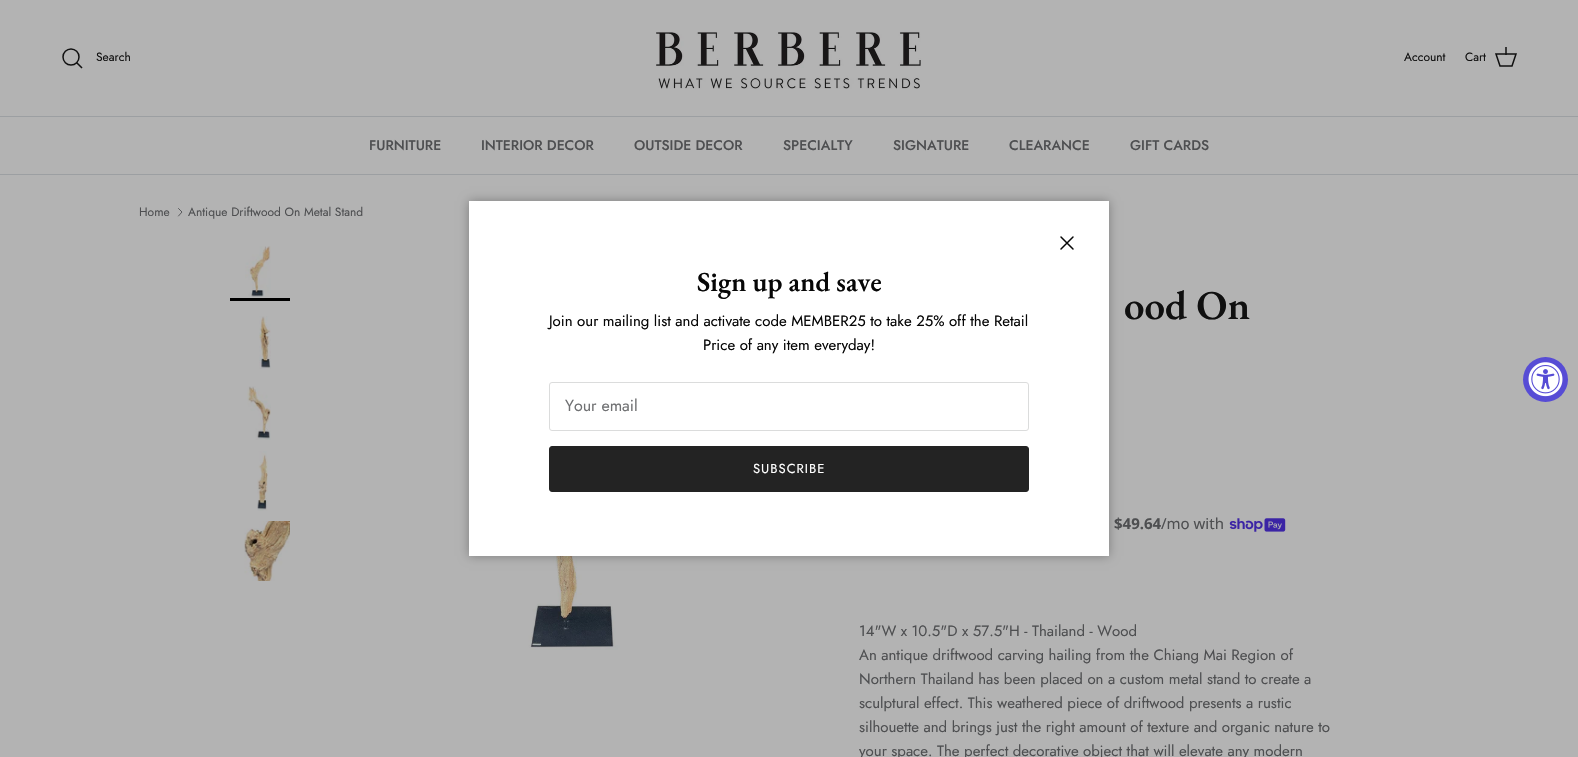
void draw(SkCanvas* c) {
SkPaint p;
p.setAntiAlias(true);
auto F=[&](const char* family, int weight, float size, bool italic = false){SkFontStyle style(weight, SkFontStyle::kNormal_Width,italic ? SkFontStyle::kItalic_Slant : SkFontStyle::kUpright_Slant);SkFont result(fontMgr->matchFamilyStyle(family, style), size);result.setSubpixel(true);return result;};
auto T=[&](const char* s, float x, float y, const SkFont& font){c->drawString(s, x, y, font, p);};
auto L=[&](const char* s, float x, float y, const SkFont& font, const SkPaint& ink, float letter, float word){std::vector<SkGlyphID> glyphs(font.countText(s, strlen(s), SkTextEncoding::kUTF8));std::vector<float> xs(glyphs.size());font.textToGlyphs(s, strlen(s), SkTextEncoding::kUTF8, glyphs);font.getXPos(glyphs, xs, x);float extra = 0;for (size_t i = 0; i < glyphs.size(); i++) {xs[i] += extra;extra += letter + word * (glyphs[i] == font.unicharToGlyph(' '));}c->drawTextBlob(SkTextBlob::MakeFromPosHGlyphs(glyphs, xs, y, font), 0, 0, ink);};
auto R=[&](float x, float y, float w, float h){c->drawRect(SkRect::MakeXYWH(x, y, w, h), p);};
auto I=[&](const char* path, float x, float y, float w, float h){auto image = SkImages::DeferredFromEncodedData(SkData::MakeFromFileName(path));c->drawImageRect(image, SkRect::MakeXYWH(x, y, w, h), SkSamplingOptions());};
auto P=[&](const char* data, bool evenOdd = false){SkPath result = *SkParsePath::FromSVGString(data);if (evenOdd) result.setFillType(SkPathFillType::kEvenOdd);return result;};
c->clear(0xffb3b3b3);
p.setColor(0xff9c9fa2);
R(0,116,1578,1);
p.setStroke(true);
p.setStrokeWidth(1.5);
p.setColor(0xff101010);
c->drawCircle(71,57,8,p);
auto f1 = F("Jost",400,12);
p.setStroke(false);
T("Search",96,61,f1);
p.setStroke(true);
p.setStrokeCap(SkPaint::kSquare_Cap);
c->drawPath(P("M77 63l4.5 4.5"),p);
I("1.png",656,32,265,57);
p.setStroke(false);
T("Account",1404,61,f1);
T("Cart",1465,61,f1);
p.setStroke(true);
p.setStrokeCap(SkPaint::kButt_Cap);
c->drawPath(P("M1496 54h20l-4 12h-12z"),p);
p.setStroke(false);
p.setColor(0xbf101010);
R(1505,47,2,8);
p.setColor(0xff9c9fa2);
R(0,174,1578,1);
auto f2 = F("Jost",500,14);
p.setColor(0xff4e4f51);
T("FURNITURE",369,150,f2);
T("INTERIOR DECOR",481,150,f2);
T("OUTSIDE DECOR",634,150,f2);
T("SPECIALTY",783,150,f2);
T("SIGNATURE",893,150,f2);
T("CLEARANCE",1009,150,f2);
T("GIFT CARDS",1130,150,f2);
T("Home",139,216,f1);
p.setStroke(true);
p.setStrokeWidth(.9);
p.setStrokeCap(SkPaint::kRound_Cap);
p.setStrokeJoin(SkPaint::kRound_Join);
c->drawPath(P("M178.5 216l3.5-4l-3.5-3.5"),p);
p.setStroke(false);
T("Antique Driftwood On Metal Stand",188,216,f1);
I("2.png",245,246,26,51);
p.setColor(0xff000000);
R(230,298,60,3);
I("3.png",259,316,12,53);
I("4.png",247,386,24,54);
I("5.png",257,451,11,60);
I("6.png",244,521,46,60);
I("7.png",517,556,147,94);
auto f3 = F("EB Garamond",600,41);
p.setColor(0xff101010);
T("ood On",1124,319,f3);
auto f4 = F("Noto Sans",700,15);
p.setColor(0xff4e4f51);
T("$49.64",1114,529,f4);
auto f5 = F("Noto Sans",400,15);
T("/mo with",1161,529,f5);
I("8.png",1229,518,57,14);
auto f6 = F("Jost",400,15);
T("14\"W x 10.5\"D x 57.5\"H - Thailand - Wood",859,636,f6);
T("An antique driftwood carving hailing from the Chiang Mai Region of",859,660,f6);
T("Northern Thailand has been placed on a custom metal stand to create a",859,684,f6);
T("sculptural effect. This weathered piece of driftwood presents a rustic",859,708,f6);
T("silhouette and brings just the right amount of texture and organic nature to",859,732,f6);
T("your space. The perfect decorative object that will elevate any modern",859,756,f6);
p.setColor(0x4d000000);
p.setMaskFilter(SkMaskFilter::MakeBlur(kNormal_SkBlurStyle, 5));
c->drawRect(SkRect::MakeXYWH(469,201,640,355),p);
p.setMaskFilter(nullptr);
p.setColor(0xffffffff);
R(469,201,640,355);
p.setStroke(true);
p.setStrokeWidth(1.5);
p.setColor(0xff070707);
c->drawPath(P("M1073 237l-12 12m0-12l12 12"),p);
auto f7 = F("EB Garamond",600,27.5);
p.setStroke(false);
T("Sign up and save",697,291,f7);
T("Join our mailing list and activate code MEMBER25 to take 25% off the Retail",549,326,f6);
T("Price of any item everyday!",703,350,f6);
p.setStroke(true);
p.setStrokeWidth(1);
p.setStrokeCap(SkPaint::kButt_Cap);
p.setStrokeJoin(SkPaint::kMiter_Join);
p.setColor(0xffdbdcdc);
c->drawRoundRect(SkRect::MakeXYWH(549.5,382.5,479,48),2.5,2.5,p);
auto f8 = F("Jost",400,16);
p.setStroke(false);
p.setColor(0xff707173);
T("Your email",565,411,f8);
p.setColor(0xff232323);
c->drawRoundRect(SkRect::MakeXYWH(549.5,446.5,479,45),2.5,2.5,p);
p.setStroke(true);
c->drawRoundRect(SkRect::MakeXYWH(549.5,446.5,479,45),2.5,2.5,p);
auto f9 = F("Jost",400,13);
p.setStroke(false);
p.setColor(0xffffffff);
L("SUBSCRIBE",753,473,f9,p,1,0);
p.setColor(0xff574cd5);
c->drawCircle(1545.5,379.5,22.5,p);
I("9.png",1528,362,35,35);
}
